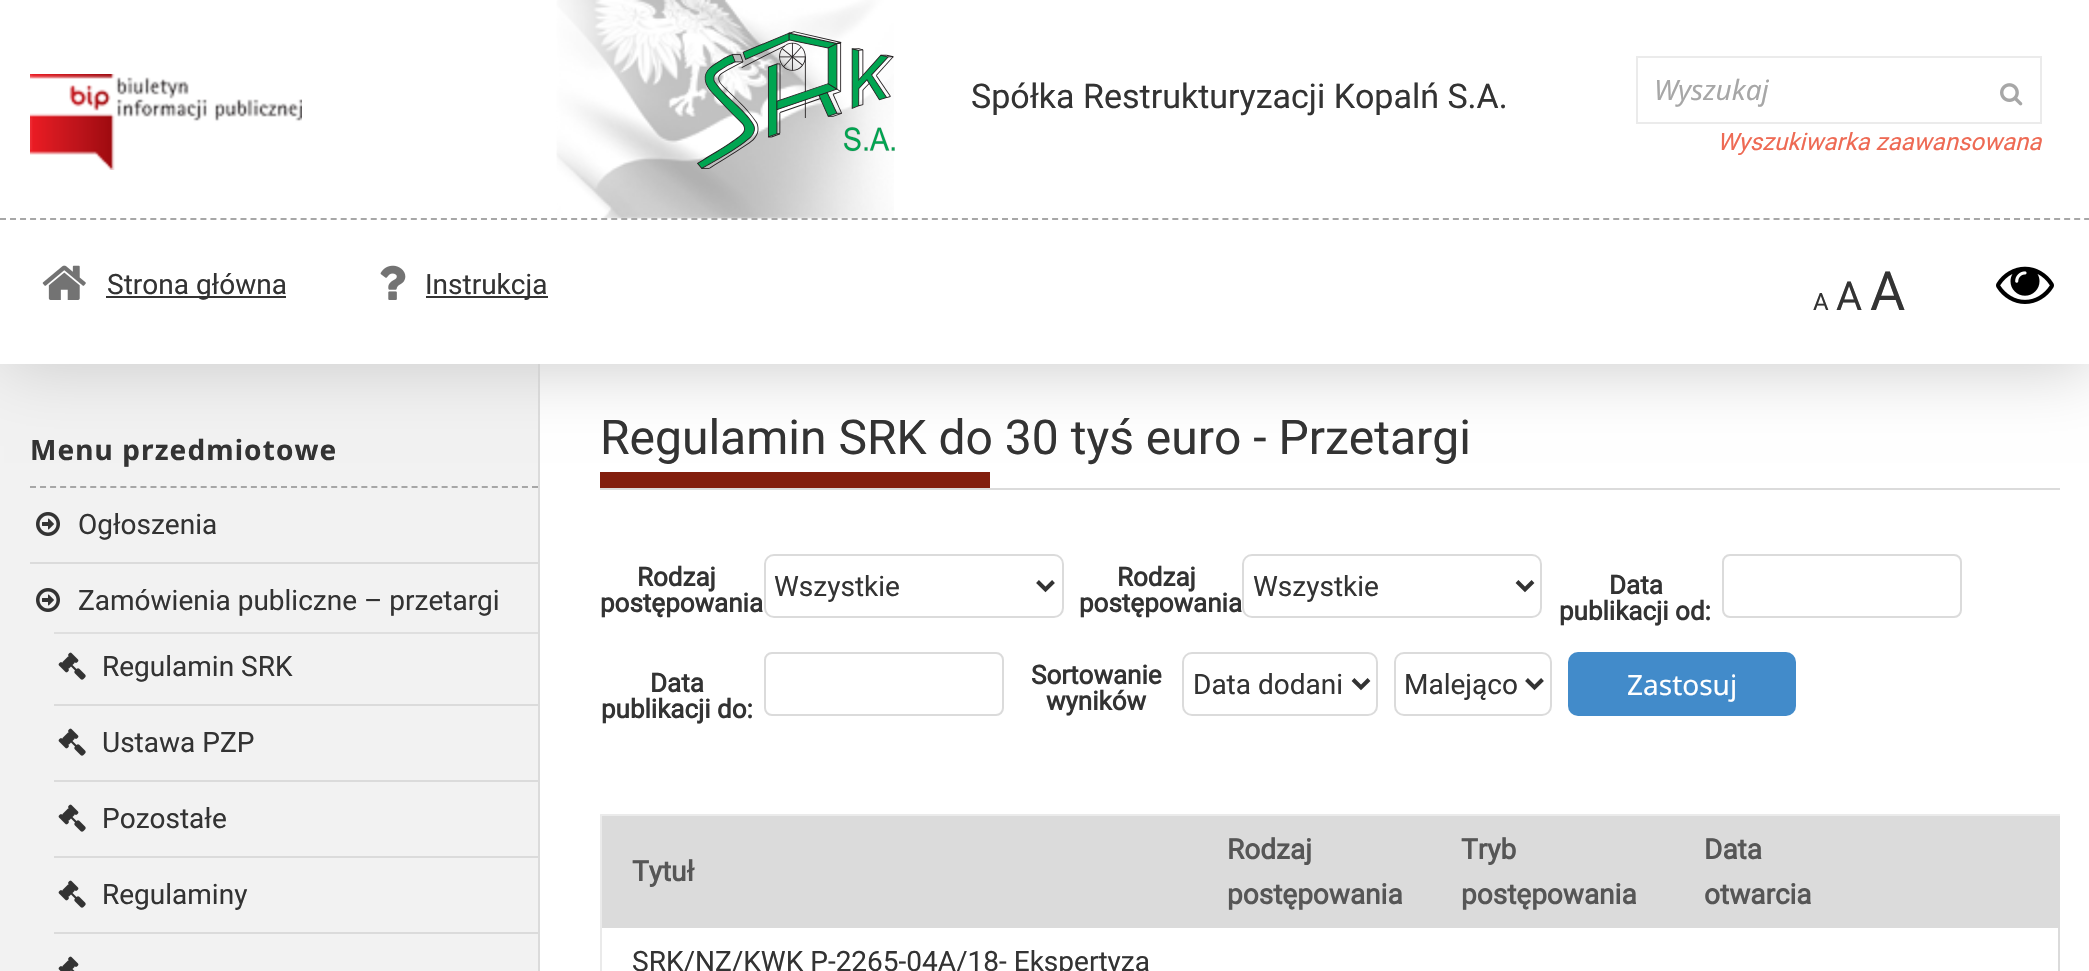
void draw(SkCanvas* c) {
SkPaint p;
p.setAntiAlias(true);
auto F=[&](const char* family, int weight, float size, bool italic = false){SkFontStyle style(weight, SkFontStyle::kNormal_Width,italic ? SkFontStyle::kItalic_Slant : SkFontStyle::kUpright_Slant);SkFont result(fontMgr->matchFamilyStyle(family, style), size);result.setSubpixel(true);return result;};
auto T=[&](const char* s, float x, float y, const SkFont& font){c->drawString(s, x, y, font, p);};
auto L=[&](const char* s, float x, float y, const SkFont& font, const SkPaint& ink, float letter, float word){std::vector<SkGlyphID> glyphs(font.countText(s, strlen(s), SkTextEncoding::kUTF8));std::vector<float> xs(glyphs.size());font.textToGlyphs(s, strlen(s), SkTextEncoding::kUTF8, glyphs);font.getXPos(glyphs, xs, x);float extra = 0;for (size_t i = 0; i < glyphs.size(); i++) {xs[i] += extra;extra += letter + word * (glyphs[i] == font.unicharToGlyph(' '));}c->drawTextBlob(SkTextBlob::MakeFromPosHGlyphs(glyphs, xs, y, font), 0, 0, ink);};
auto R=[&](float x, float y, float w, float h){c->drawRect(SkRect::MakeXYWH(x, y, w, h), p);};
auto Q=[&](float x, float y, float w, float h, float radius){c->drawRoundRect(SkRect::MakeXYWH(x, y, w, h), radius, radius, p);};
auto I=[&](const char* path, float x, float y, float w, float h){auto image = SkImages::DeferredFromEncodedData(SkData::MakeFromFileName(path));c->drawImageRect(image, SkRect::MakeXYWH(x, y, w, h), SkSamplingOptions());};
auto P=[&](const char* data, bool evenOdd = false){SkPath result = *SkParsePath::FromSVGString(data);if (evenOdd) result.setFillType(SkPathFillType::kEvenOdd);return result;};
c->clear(0xffffffff);
p.setColor(0xfff2f2f2);
R(0,364,538,607);
p.setColor(0xffdbdbdb);
R(538,364,2,607);
p.setColor(0xffcccccc);
p.setMaskFilter(SkMaskFilter::MakeBlur(kNormal_SkBlurStyle, 32));
c->drawRect(SkRect::MakeXYWH(4,4,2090,364),p);
p.setMaskFilter(nullptr);
p.setColor(0xffffffff);
R(0,0,2089,364);
I("1.png",556,0,338,219);
p.setStroke(true);
p.setStrokeWidth(2);
p.setColor(0xffa7a7a7);
p.setPathEffect(SkDashPathEffect::Make({{6,4.02f}}, 0));
c->drawPath(P("M0 219h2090"),p);
p.setPathEffect(nullptr);
I("2.png",30,74,272,96);
I("3.png",697,31,198,138);
auto f1 = F("Roboto",400,34);
p.setStroke(false);
p.setColor(0xff333333);
T("Spółka Restrukturyzacji Kopalń S.A.",971,108,f1);
p.setStroke(true);
p.setColor(0xffebebeb);
c->drawRect(SkRect::MakeXYWH(1637,57,404,66),p);
auto f2 = F("Noto Sans",400,28,true);
p.setStroke(false);
p.setColor(0xffa7a7a7);
T("Wyszukaj",1654,100,f2);
I("4.png",2000,83,23,23);
auto f3 = F("Roboto",400,24,true);
p.setColor(0xffee6a54);
T("Wyszukiwarka zaawansowana",1717,150,f3);
I("5.png",42,265,44,35);
p.setColor(0xff333333);
R(106,296,180,2);
auto f4 = F("Roboto",400,28);
T("Strona główna",107,294,f4);
I("6.png",380,265,26,35);
R(426,296,122,2);
T("Instrukcja",425,294,f4);
auto f5 = F("Roboto",400,24);
T("A",1813,310,f5);
auto f6 = F("Roboto",400,40);
T("A",1836,310,f6);
auto f7 = F("Roboto",400,54);
T("A",1870,310,f7);
I("7.png",1996,266,58,38);
p.setStroke(true);
p.setColor(0xffa7a7a7);
p.setPathEffect(SkDashPathEffect::Make({{6,4.04f}}, 0));
c->drawPath(P("M30 487h508"),p);
p.setPathEffect(nullptr);
auto f8 = F("Noto Sans",700,28);
p.setStroke(false);
p.setColor(0xff333333);
L("Menu przedmiotowe",30,460,f8,p,1.1,0);
I("8.png",36,512,24,24);
T("Ogłoszenia",78,534,f4);
p.setColor(0xffdbdbdb);
R(30,562,508,2);
I("8.png",36,588,24,24);
p.setColor(0xff333333);
T("Zamówienia publiczne – przetargi",78,610,f4);
p.setColor(0xffdfdfdf);
R(54,632,484,2);
I("9.png",58,652,28,28);
p.setColor(0xff333333);
T("Regulamin SRK",102,676,f4);
p.setColor(0xffdbdbdb);
R(54,704,484,2);
I("9.png",58,728,28,28);
p.setColor(0xff333333);
T("Ustawa PZP",102,752,f4);
p.setColor(0xffdbdbdb);
R(54,780,484,2);
I("9.png",58,804,28,28);
p.setColor(0xff333333);
T("Pozostałe",102,828,f4);
p.setColor(0xffdbdbdb);
R(54,856,484,2);
I("9.png",58,880,28,28);
p.setColor(0xff333333);
T("Regulaminy",102,904,f4);
p.setColor(0xffdbdbdb);
R(54,932,484,2);
I("10.png",58,956,21,15);
R(600,488,1460,2);
auto f9 = F("Roboto",400,48);
p.setColor(0xff333333);
T("Regulamin SRK do 30 tyś euro - Przetargi",600,454,f9);
p.setColor(0xff821e0d);
R(600,472,390,16);
auto f10 = F("Roboto",700,26);
p.setColor(0xff333333);
T("Rodzaj",637,586,f10);
T("postępowania",600,612,f10);
p.setStroke(true);
p.setColor(0xffdbdbdb);
c->drawRoundRect(SkRect::MakeXYWH(765,555,298,62),9,9,p);
p.setStrokeWidth(4);
p.setColor(0xff333333);
c->drawPath(P("M1037.5 581.5l8 8l8-8"),p);
p.setStroke(false);
T("Wszystkie",774,596,f4);
T("Rodzaj",1117,586,f10);
T("postępowania",1079,612,f10);
p.setStroke(true);
p.setStrokeWidth(2);
p.setColor(0xffdbdbdb);
c->drawRoundRect(SkRect::MakeXYWH(1243,555,298,62),9,9,p);
p.setStrokeWidth(4);
p.setColor(0xff333333);
c->drawPath(P("M1517 581.5l8 8l8-8"),p);
p.setStroke(false);
T("Wszystkie",1253,596,f4);
T("Data",1609,594,f10);
T("publikacji od:",1559,620,f10);
p.setStroke(true);
p.setStrokeWidth(2);
p.setColor(0xffdbdbdb);
c->drawRoundRect(SkRect::MakeXYWH(1723,555,238,62),7,7,p);
p.setStroke(false);
p.setColor(0xff333333);
T("Data",650,692,f10);
T("publikacji do:",601,718,f10);
p.setStroke(true);
p.setColor(0xffdbdbdb);
c->drawRoundRect(SkRect::MakeXYWH(765,653,238,62),7,7,p);
p.setStroke(false);
p.setColor(0xff333333);
T("Sortowanie",1031,684,f10);
T("wyników",1046,710,f10);
p.setStroke(true);
p.setColor(0xffdbdbdb);
c->drawRoundRect(SkRect::MakeXYWH(1183,653,194,62),9,9,p);
p.setStrokeWidth(4);
p.setColor(0xff333333);
c->drawPath(P("M1353 679.5l8 8l8-8"),p);
p.setStroke(false);
T("Data dodani",1193,694,f4);
p.setStroke(true);
p.setStrokeWidth(2);
p.setColor(0xffdbdbdb);
c->drawRoundRect(SkRect::MakeXYWH(1395,653,156,62),9,9,p);
p.setStrokeWidth(4);
p.setColor(0xff333333);
c->drawPath(P("M1526.5 679.5l8 8l8-8"),p);
p.setStroke(false);
T("Malejąco",1404,694,f4);
p.setColor(0xff428bca);
Q(1568,652,228,64,10);
auto f11 = F("Noto Sans",400,28);
p.setColor(0xffffffff);
T("Zastosuj",1627,695,f11);
p.setColor(0xffebebeb);
c->drawPath(P("M600 814h1460v2h-1458z"),p);
p.setColor(0x1a333333);
c->drawPath(P("M600 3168v-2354l2 2v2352z"),p);
p.setColor(0xffdbdbdb);
R(602,816,1458,112);
auto f12 = F("Roboto",700,28);
p.setColor(0xff565656);
T("Tytuł",632,881,f12);
T("Rodzaj",1227,859,f12);
T("postępowania",1227,904,f12);
T("Tryb",1461,859,f12);
T("postępowania",1461,904,f12);
T("Data",1704,859,f12);
T("otwarcia",1704,904,f12);
p.setColor(0xff333333);
T("SRK/NZ/KWK P-2265-04A/18- Ekspertyza",632,971,f4);
p.setColor(0xffdbdbdb);
R(2058,928,2,43);
}
